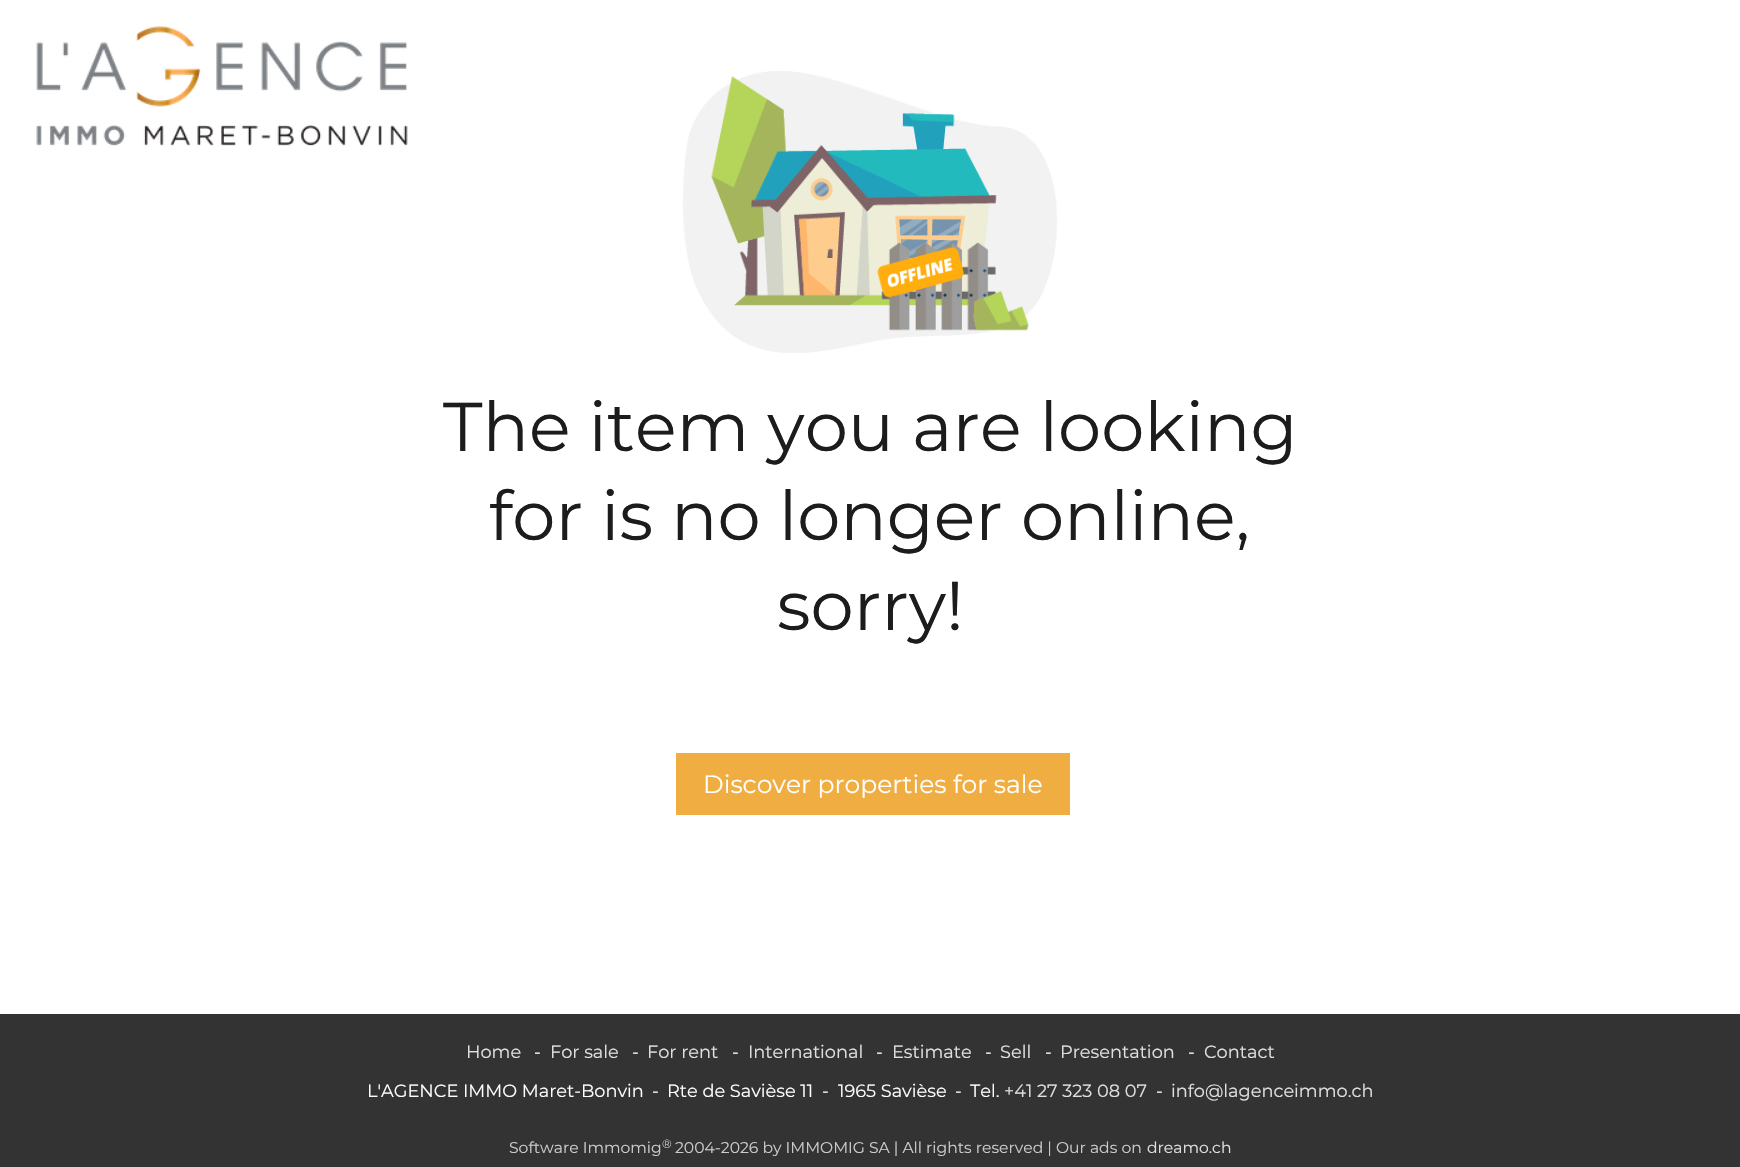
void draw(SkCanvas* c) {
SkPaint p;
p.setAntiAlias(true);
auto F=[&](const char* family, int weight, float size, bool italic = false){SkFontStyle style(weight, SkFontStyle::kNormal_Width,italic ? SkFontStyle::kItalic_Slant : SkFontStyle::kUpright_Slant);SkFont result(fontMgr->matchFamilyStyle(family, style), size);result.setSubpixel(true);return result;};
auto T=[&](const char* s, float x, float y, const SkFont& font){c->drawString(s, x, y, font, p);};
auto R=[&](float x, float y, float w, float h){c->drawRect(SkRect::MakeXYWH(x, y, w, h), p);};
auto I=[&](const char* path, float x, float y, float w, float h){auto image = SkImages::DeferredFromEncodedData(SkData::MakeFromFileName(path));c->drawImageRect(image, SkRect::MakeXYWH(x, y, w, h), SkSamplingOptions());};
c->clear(0xffffffff);
I("1.png",36,26,372,120);
I("2.png",682,71,376,282);
auto f1 = F("Montserrat",400,68.75);
p.setColor(0xff1c1c1c);
T("The item you are looking",443,451,f1);
T("for is no longer online,",489,540,f1);
T("sorry!",777,630,f1);
p.setColor(0xfff0ad41);
R(676,753,394,62);
auto f2 = F("Montserrat",400,25);
p.setColor(0xffffffff);
T("Discover properties for sale",703,793,f2);
p.setColor(0xff333333);
R(0,1014,1740,153);
auto f3 = F("Montserrat",400,17.75);
p.setColor(0xffe0e0e0);
T("Home",466,1058,f3);
p.setColor(0xffffffff);
T("-",534,1058,f3);
p.setColor(0xffe0e0e0);
T("For sale",550,1058,f3);
p.setColor(0xffffffff);
T("-",632,1058,f3);
p.setColor(0xffe0e0e0);
T("For rent",647,1058,f3);
p.setColor(0xffffffff);
T("-",732,1058,f3);
p.setColor(0xffe0e0e0);
T("International",748,1058,f3);
p.setColor(0xffffffff);
T("-",876,1058,f3);
p.setColor(0xffe0e0e0);
T("Estimate",892,1058,f3);
p.setColor(0xffffffff);
T("-",985,1058,f3);
p.setColor(0xffe0e0e0);
T("Sell",1000,1058,f3);
p.setColor(0xffffffff);
T("-",1045,1058,f3);
p.setColor(0xffe0e0e0);
T("Presentation",1060,1058,f3);
p.setColor(0xffffffff);
T("-",1188,1058,f3);
p.setColor(0xffe0e0e0);
T("Contact",1204,1058,f3);
p.setColor(0xffffffff);
T("L'AGENCE IMMO Maret-Bonvin",367,1097,f3);
T("-",652,1097,f3);
T("Rte de Savièse 11",667,1097,f3);
T("-",822,1097,f3);
T("1965 Savièse",838,1097,f3);
T("-",955,1097,f3);
T("Tel.",970,1097,f3);
p.setColor(0xffe0e0e0);
T("+41 27 323 08 07",1004,1097,f3);
p.setColor(0xffffffff);
T("-",1156,1097,f3);
p.setColor(0xffe0e0e0);
T("info@lagenceimmo.ch",1171,1097,f3);
auto f4 = F("Montserrat",400,15.6);
p.setColor(0xffcccccc);
T("Software Immomig",509,1153,f4);
auto f5 = F("Montserrat",400,12);
T("®",662,1148,f5);
T("2004-2026 by IMMOMIG SA | All rights reserved | Our ads on",675,1153,f4);
p.setColor(0xffe0e0e0);
T("dreamo.ch",1147,1153,f4);
}
